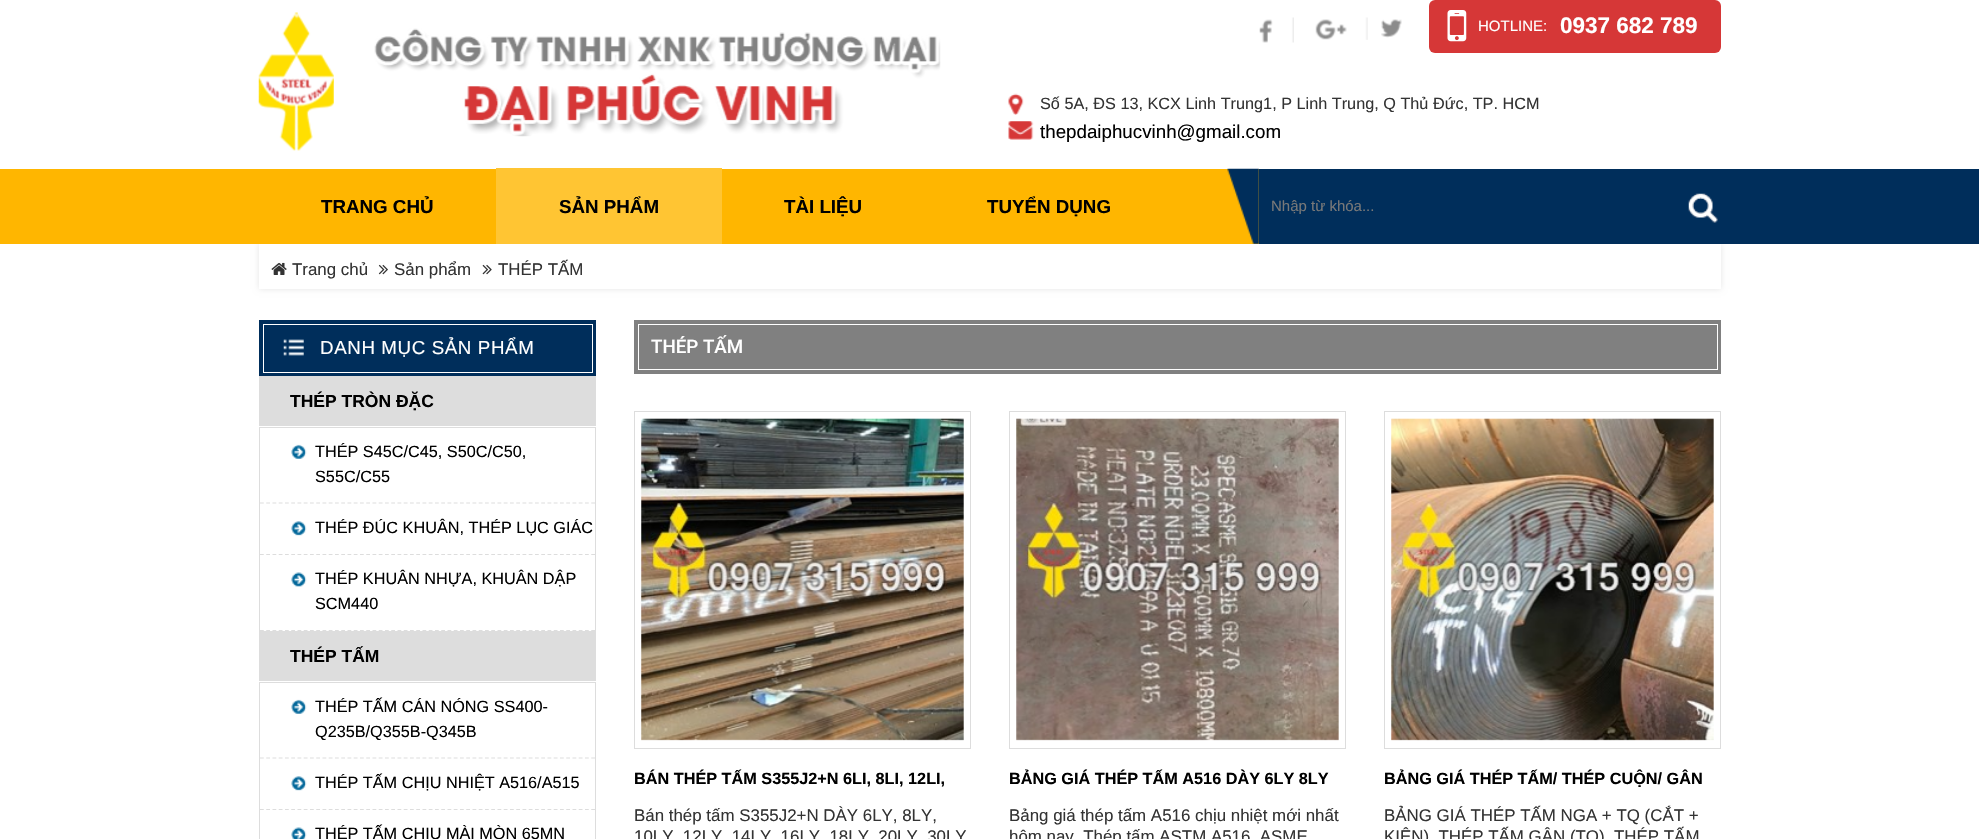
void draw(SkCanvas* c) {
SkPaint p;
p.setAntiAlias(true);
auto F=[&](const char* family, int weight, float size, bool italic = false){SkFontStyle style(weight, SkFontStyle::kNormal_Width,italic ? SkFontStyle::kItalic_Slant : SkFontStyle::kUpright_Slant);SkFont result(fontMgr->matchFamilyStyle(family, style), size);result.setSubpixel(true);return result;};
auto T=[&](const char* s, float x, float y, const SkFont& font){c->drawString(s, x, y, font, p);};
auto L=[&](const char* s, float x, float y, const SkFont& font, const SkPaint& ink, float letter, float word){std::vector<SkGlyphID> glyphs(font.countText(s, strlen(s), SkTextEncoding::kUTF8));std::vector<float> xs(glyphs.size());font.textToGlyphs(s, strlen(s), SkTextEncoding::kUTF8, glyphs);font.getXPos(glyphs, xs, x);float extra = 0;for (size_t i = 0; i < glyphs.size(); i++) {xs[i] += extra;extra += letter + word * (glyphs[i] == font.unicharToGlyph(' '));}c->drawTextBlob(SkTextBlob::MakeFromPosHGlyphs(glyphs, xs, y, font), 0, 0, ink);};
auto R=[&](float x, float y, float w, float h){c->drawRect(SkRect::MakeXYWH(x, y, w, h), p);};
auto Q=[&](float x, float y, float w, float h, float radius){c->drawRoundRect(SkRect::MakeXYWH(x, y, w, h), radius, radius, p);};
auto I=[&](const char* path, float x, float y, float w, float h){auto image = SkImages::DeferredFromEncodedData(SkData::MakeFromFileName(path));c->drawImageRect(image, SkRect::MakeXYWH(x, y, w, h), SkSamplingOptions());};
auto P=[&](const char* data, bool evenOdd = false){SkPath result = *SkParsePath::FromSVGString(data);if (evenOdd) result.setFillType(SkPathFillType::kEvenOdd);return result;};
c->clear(0xffffffff);
I("1.png",258,12,76,139);
I("2.png",374,28,567,109);
I("3.png",1259,17,35,26);
I("4.png",1315,17,53,23);
I("5.png",1381,19,21,19);
p.setColor(0xffd63737);
Q(1429,0,292,53,6);
I("6.png",1447,10,20,32);
auto f1 = F("Liberation Sans",400,15);
p.setColor(0xffffffff);
T("HOTLINE:",1478,31,f1);
auto f2 = F("Liberation Sans",700,22.5);
T("0937 682 789",1560,33,f2);
I("7.png",1008,93,16,22);
auto f3 = F("Liberation Sans",400,16.25);
p.setColor(0xff333333);
T("Số 5A, ĐS 13, KCX Linh Trung1, P Linh Trung, Q Thủ Đức, TP. HCM",1040,109,f3);
I("8.png",1008,121,26,19);
auto f4 = F("Liberation Sans",400,18.75);
p.setColor(0xff000000);
T("thepdaiphucvinh@gmail.com",1040,138,f4);
c->save();
c->clipPath(P("M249 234h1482v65h-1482zm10 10h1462v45h-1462z",true),true);
p.setColor(0x1a000000);
p.setMaskFilter(SkMaskFilter::MakeBlur(kNormal_SkBlurStyle, 3));
c->drawRect(SkRect::MakeXYWH(259,244,1462,45),p);
p.setMaskFilter(nullptr);
c->restore();
p.setColor(0xffffb600);
R(0,169,1259,75);
auto f5 = F("Liberation Sans",700,18.75);
p.setColor(0xff000000);
T("TRANG CHỦ",321,213,f5);
p.setColor(0xffffc533);
R(496,168,226,76);
p.setColor(0xff000000);
T("SẢN PHẨM",559,213,f5);
T("TÀI LIỆU",784,213,f5);
T("TUYỂN DỤNG",987,213,f5);
I("9.png",1227,168,32,76);
p.setColor(0xff002e5b);
R(1259,169,720,75);
p.setColor(0xff787878);
T("Nhập từ khóa...",1271,211,f1);
I("10.png",1688,193,33,32);
I("11.png",271,262,16,13);
auto f6 = F("Liberation Sans",400,16.9);
p.setColor(0xff333333);
T("Trang chủ",292,275,f6);
I("12.png",378,264,10,11);
T("Sản phẩm",394,275,f6);
I("13.png",482,264,10,11);
T("THÉP TẤM",498,275,f6);
p.setColor(0xff002e5b);
R(259,320,337,56);
I("14.png",283,339,21,17);
p.setStroke(true);
p.setStrokeWidth(1);
p.setColor(0xffffffff);
c->drawRect(SkRect::MakeXYWH(263.5,324.5,329,48),p);
p.setStroke(false);
L("DANH MỤC SẢN PHẨM",320,354,f4,p,.6,0);
p.setColor(0xffdddddd);
R(259,376,337,255);
p.setColor(0xffffffff);
R(259,426,337,1);
auto f7 = F("Liberation Sans",700,17.5);
p.setColor(0xff000000);
T("THÉP TRÒN ĐẶC",290,407,f7);
p.setColor(0xffffffff);
R(260,428,335,127);
I("15.png",291,444,16,15);
p.setStroke(true);
p.setStrokeWidth(1.2);
p.setColor(0xffdddddd);
p.setPathEffect(SkDashPathEffect::Make({{3.75f,2.5f}}, 0));
c->drawPath(P("M260 503h335"),p);
p.setPathEffect(nullptr);
p.setStroke(false);
p.setColor(0xff000000);
T("THÉP S45C/C45, S50C/C50,",315,457,f3);
T("S55C/C55",315,482,f3);
I("16.png",291,521,16,15);
p.setStroke(true);
p.setColor(0xffdddddd);
p.setPathEffect(SkDashPathEffect::Make({{3.75f,2.5f}}, 0));
c->drawPath(P("M260 554.5h335"),p);
p.setPathEffect(nullptr);
p.setStroke(false);
p.setColor(0xff000000);
T("THÉP ĐÚC KHUÂN, THÉP LỤC GIÁC",315,533,f3);
p.setColor(0xffffffff);
R(260,555,335,76);
I("17.png",291,572,16,15);
p.setStroke(true);
p.setColor(0xffdddddd);
p.setPathEffect(SkDashPathEffect::Make({{3.75f,2.5f}}, 0));
c->drawPath(P("M260 630.5h335"),p);
p.setPathEffect(nullptr);
p.setStroke(false);
p.setColor(0xff000000);
T("THÉP KHUÂN NHỰA, KHUÂN DẬP",315,584,f3);
T("SCM440",315,609,f3);
p.setColor(0xffdddddd);
R(259,631,337,208);
p.setColor(0xffffffff);
R(259,681,337,1);
p.setColor(0xff000000);
T("THÉP TẤM",290,662,f7);
p.setColor(0xffffffff);
R(260,683,335,127);
I("15.png",291,699,16,15);
p.setStroke(true);
p.setColor(0xffdddddd);
p.setPathEffect(SkDashPathEffect::Make({{3.75f,2.5f}}, 0));
c->drawPath(P("M260 758h335"),p);
p.setPathEffect(nullptr);
p.setStroke(false);
p.setColor(0xff000000);
T("THÉP TẤM CÁN NÓNG SS400-",315,712,f3);
T("Q235B/Q355B-Q345B",315,737,f3);
I("16.png",291,776,16,15);
p.setStroke(true);
p.setColor(0xffdddddd);
p.setPathEffect(SkDashPathEffect::Make({{3.75f,2.5f}}, 0));
c->drawPath(P("M260 809.5h335"),p);
p.setPathEffect(nullptr);
p.setStroke(false);
p.setColor(0xff000000);
T("THÉP TẤM CHỊU NHIỆT A516/A515",315,788,f3);
p.setColor(0xffffffff);
R(260,810,335,29);
I("18.png",291,827,16,12);
p.setColor(0xff000000);
T("THÉP TẤM CHỊU MÀI MÒN 65MN",315,839,f3);
p.setColor(0xff808080);
R(634,320,1087,54);
p.setStroke(true);
p.setStrokeWidth(1);
p.setColor(0xffffffff);
c->drawRect(SkRect::MakeXYWH(638.5,324.5,1079,45),p);
auto f8 = F("Roboto",500,18.75);
p.setStroke(false);
T("THÉP TẤM",651,353,f8);
p.setStroke(true);
p.setColor(0xffdddddd);
c->drawRect(SkRect::MakeXYWH(634.5,411.5,336,337),p);
I("19.png",641,418,323,323);
auto f9 = F("Liberation Sans",700,16.25);
p.setStroke(false);
p.setColor(0xff000000);
T("BÁN THÉP TẤM S355J2+N 6LI, 8LI, 12LI,",634,784,f9);
p.setColor(0xff333333);
T("Bán thép tấm S355J2+N DÀY 6LY, 8LY,",634,821,f6);
T("10LY, 12LY, 14LY, 16LY, 18LY, 20LY, 30LY",634,842,f6);
p.setStroke(true);
p.setColor(0xffdddddd);
c->drawRect(SkRect::MakeXYWH(1009.5,411.5,336,337),p);
I("20.png",1016,418,323,323);
p.setStroke(false);
p.setColor(0xff000000);
T("BẢNG GIÁ THÉP TẤM A516 DÀY 6LY 8LY",1009,784,f9);
p.setColor(0xff333333);
T("Bảng giá thép tấm A516 chịu nhiệt mới nhất",1009,821,f6);
T("hôm nay. Thép tấm ASTM A516, ASME",1009,842,f6);
p.setStroke(true);
p.setColor(0xffdddddd);
c->drawRect(SkRect::MakeXYWH(1384.5,411.5,336,337),p);
I("21.png",1391,418,323,323);
p.setStroke(false);
p.setColor(0xff000000);
T("BẢNG GIÁ THÉP TẤM/ THÉP CUỘN/ GÂN",1384,784,f9);
p.setColor(0xff333333);
T("BẢNG GIÁ THÉP TẤM NGA + TQ (CẮT +",1384,821,f6);
T("KIỆN), THÉP TẤM GÂN (TQ), THÉP TẤM",1384,842,f6);
}
